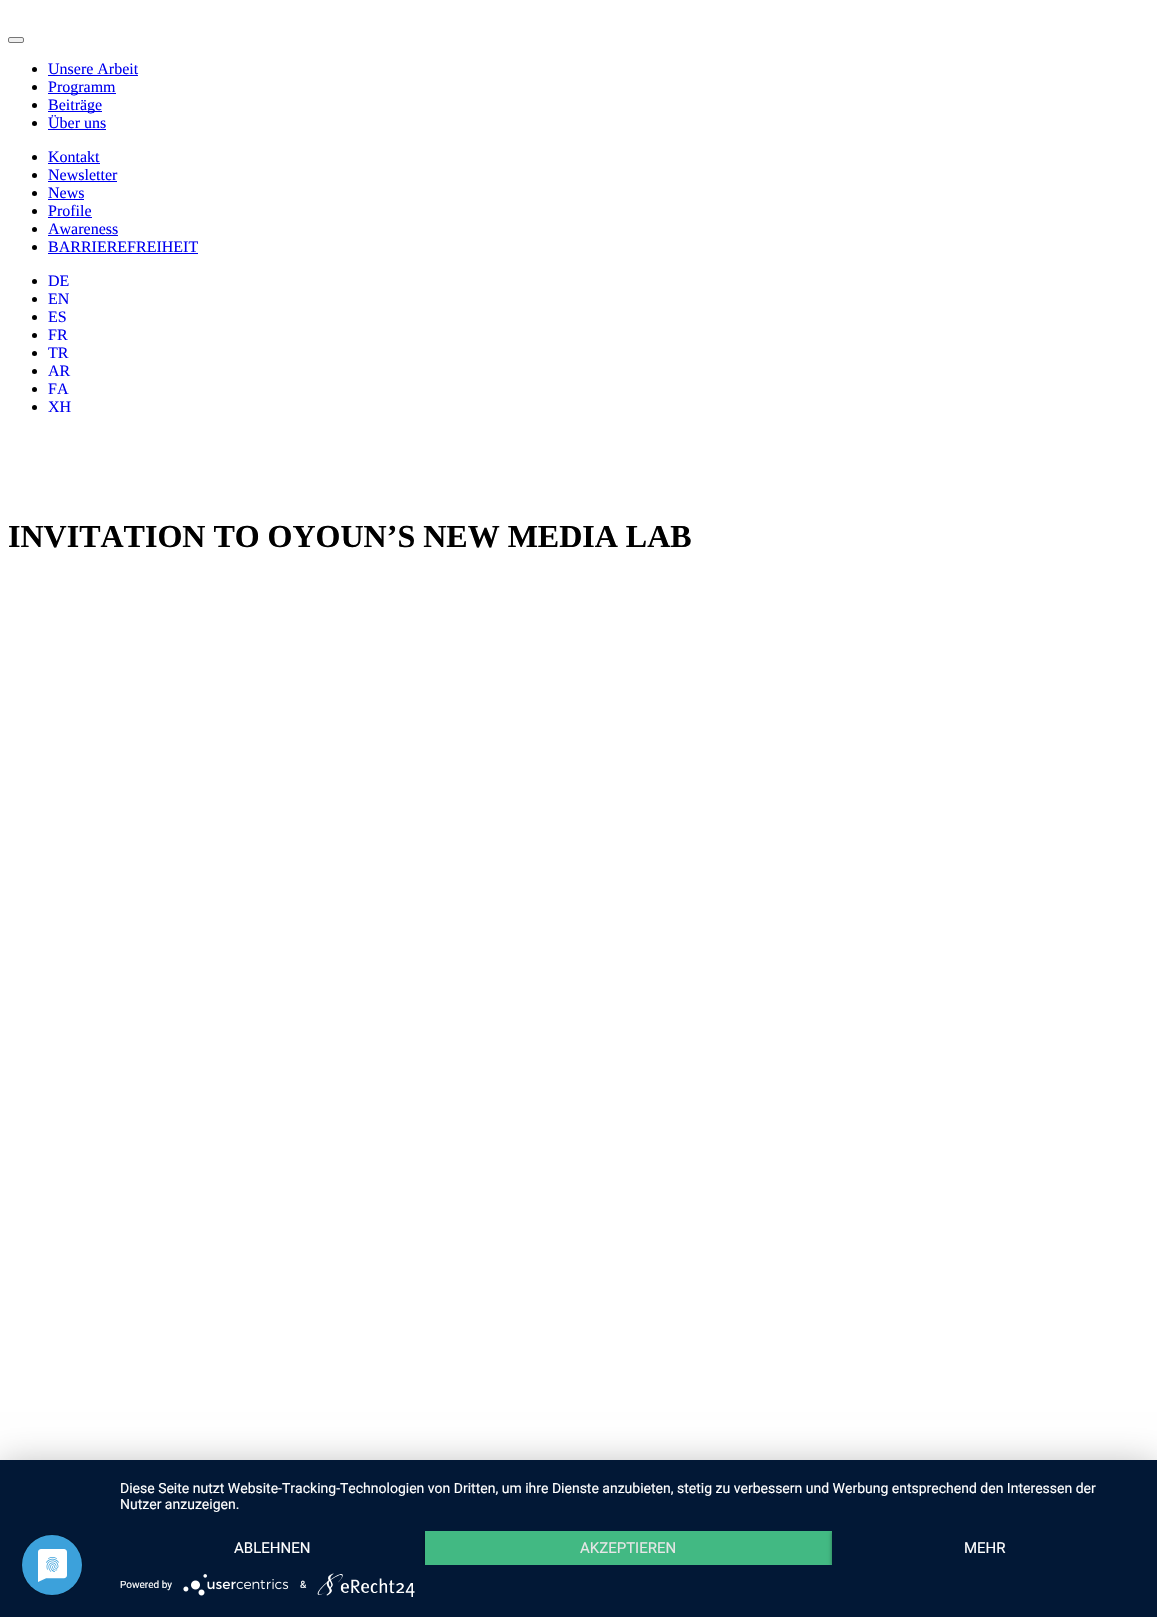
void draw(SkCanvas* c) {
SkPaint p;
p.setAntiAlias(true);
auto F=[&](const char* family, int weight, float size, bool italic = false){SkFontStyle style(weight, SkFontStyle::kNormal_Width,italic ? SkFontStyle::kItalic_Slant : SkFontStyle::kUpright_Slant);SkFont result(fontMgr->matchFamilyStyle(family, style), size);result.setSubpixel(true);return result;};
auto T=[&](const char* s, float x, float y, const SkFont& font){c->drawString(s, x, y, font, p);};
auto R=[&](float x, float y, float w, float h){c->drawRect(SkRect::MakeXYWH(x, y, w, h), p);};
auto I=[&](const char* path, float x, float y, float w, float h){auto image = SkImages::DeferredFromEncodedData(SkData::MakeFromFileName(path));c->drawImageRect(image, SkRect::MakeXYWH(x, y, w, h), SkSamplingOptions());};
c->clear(0xffffffff);
p.setColor(0xffefefef);
c->drawRoundRect(SkRect::MakeXYWH(8.5,37.5,15,5),1.5,1.5,p);
p.setStroke(true);
p.setStrokeWidth(1);
p.setColor(0xff767676);
c->drawRoundRect(SkRect::MakeXYWH(8.5,37.5,15,5),1.5,1.5,p);
p.setStroke(false);
p.setColor(0xff000000);
c->drawCircle(34.5,69.5,2.5,p);
auto f1 = F("Liberation Serif",400,16);
p.setColor(0xff0000ee);
T("Unsere Arbeit",48,74,f1);
R(48,75,90,1);
p.setColor(0xff000000);
c->drawCircle(34.5,87.5,2.5,p);
p.setColor(0xff0000ee);
R(48,93,68,1);
T("Programm",48,92,f1);
p.setColor(0xff000000);
c->drawCircle(34.5,105.5,2.5,p);
p.setColor(0xff0000ee);
R(48,111,54,1);
T("Beiträge",48,110,f1);
p.setColor(0xff000000);
c->drawCircle(34.5,123.5,2.5,p);
p.setColor(0xff0000ee);
T("Über uns",48,128,f1);
R(48,129,58,1);
p.setColor(0xff000000);
c->drawCircle(34.5,157.5,2.5,p);
p.setColor(0xff0000ee);
T("Kontakt",48,162,f1);
R(48,163,52,1);
p.setColor(0xff000000);
c->drawCircle(34.5,175.5,2.5,p);
p.setColor(0xff0000ee);
T("Newsletter",48,180,f1);
R(48,181,69,1);
p.setColor(0xff000000);
c->drawCircle(34.5,193.5,2.5,p);
p.setColor(0xff0000ee);
T("News",48,198,f1);
R(48,199,36,1);
p.setColor(0xff000000);
c->drawCircle(34.5,211.5,2.5,p);
p.setColor(0xff0000ee);
T("Profile",48,216,f1);
R(48,217,44,1);
p.setColor(0xff000000);
c->drawCircle(34.5,229.5,2.5,p);
p.setColor(0xff0000ee);
T("Awareness",48,234,f1);
R(48,235,70,1);
p.setColor(0xff000000);
c->drawCircle(34.5,247.5,2.5,p);
p.setColor(0xff0000ee);
T("BARRIEREFREIHEIT",48,252,f1);
R(48,253,150,1);
p.setColor(0xff000000);
c->drawCircle(34.5,281.5,2.5,p);
p.setColor(0xff0000ee);
T("DE",48,286,f1);
p.setColor(0xff000000);
c->drawCircle(34.5,299.5,2.5,p);
p.setColor(0xff0000ee);
T("EN",48,304,f1);
p.setColor(0xff000000);
c->drawCircle(34.5,317.5,2.5,p);
p.setColor(0xff0000ee);
T("ES",48,322,f1);
p.setColor(0xff000000);
c->drawCircle(34.5,335.5,2.5,p);
p.setColor(0xff0000ee);
T("FR",48,340,f1);
p.setColor(0xff000000);
c->drawCircle(34.5,353.5,2.5,p);
p.setColor(0xff0000ee);
T("TR",48,358,f1);
p.setColor(0xff000000);
c->drawCircle(34.5,371.5,2.5,p);
p.setColor(0xff0000ee);
T("AR",48,376,f1);
p.setColor(0xff000000);
c->drawCircle(34.5,389.5,2.5,p);
p.setColor(0xff0000ee);
T("FA",48,394,f1);
p.setColor(0xff000000);
c->drawCircle(34.5,407.5,2.5,p);
p.setColor(0xff0000ee);
T("XH",48,412,f1);
auto f2 = F("Liberation Serif",700,32);
p.setColor(0xff000000);
T("INVITATION TO OYOUN’S NEW MEDIA LAB",8,547,f2);
p.setColor(0x4d000000);
p.setMaskFilter(SkMaskFilter::MakeBlur(kNormal_SkBlurStyle, 18));
c->drawRect(SkRect::MakeXYWH(0,1466,1157,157),p);
p.setMaskFilter(nullptr);
p.setColor(0xff021836);
R(0,1460,1157,157);
I("1.png",21,1534,62,62);
auto f3 = F("Roboto",400,14);
p.setColor(0xffffffff);
T("Diese Seite nutzt Website-Tracking-Technologien von Dritten, um ihre Dienste anzubieten, stetig zu verbessern und Werbung entsprechend den Interessen der",120,1493,f3);
T("Nutzer anzuzeigen.",120,1509,f3);
auto f4 = F("Roboto",400,15);
T("ABLEHNEN",234,1553,f4);
c->save();
c->clipRect(SkRect::MakeXYWH(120,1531,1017,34));
p.setColor(0x66000000);
p.setMaskFilter(SkMaskFilter::MakeBlur(kNormal_SkBlurStyle, 2));
c->drawRect(SkRect::MakeXYWH(425,1532,407,34),p);
p.setMaskFilter(nullptr);
c->restore();
p.setColor(0xff42b983);
R(425,1531,407,34);
p.setColor(0xffe6e6e6);
T("AKZEPTIEREN",580,1553,f4);
c->save();
c->clipRect(SkRect::MakeXYWH(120,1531,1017,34));
p.setColor(0x66000000);
p.setMaskFilter(SkMaskFilter::MakeBlur(kNormal_SkBlurStyle, 2));
c->drawRect(SkRect::MakeXYWH(832,1532,305,34),p);
p.setMaskFilter(nullptr);
c->restore();
p.setColor(0xff021836);
R(832,1531,305,34);
p.setColor(0xffffffff);
T("MEHR",964,1553,f4);
auto f5 = F("Roboto",400,10);
T("Powered by",120,1588,f5);
I("2.png",183,1574,106,22);
T("&",300,1588,f5);
I("3.png",317,1573,98,24);
}
